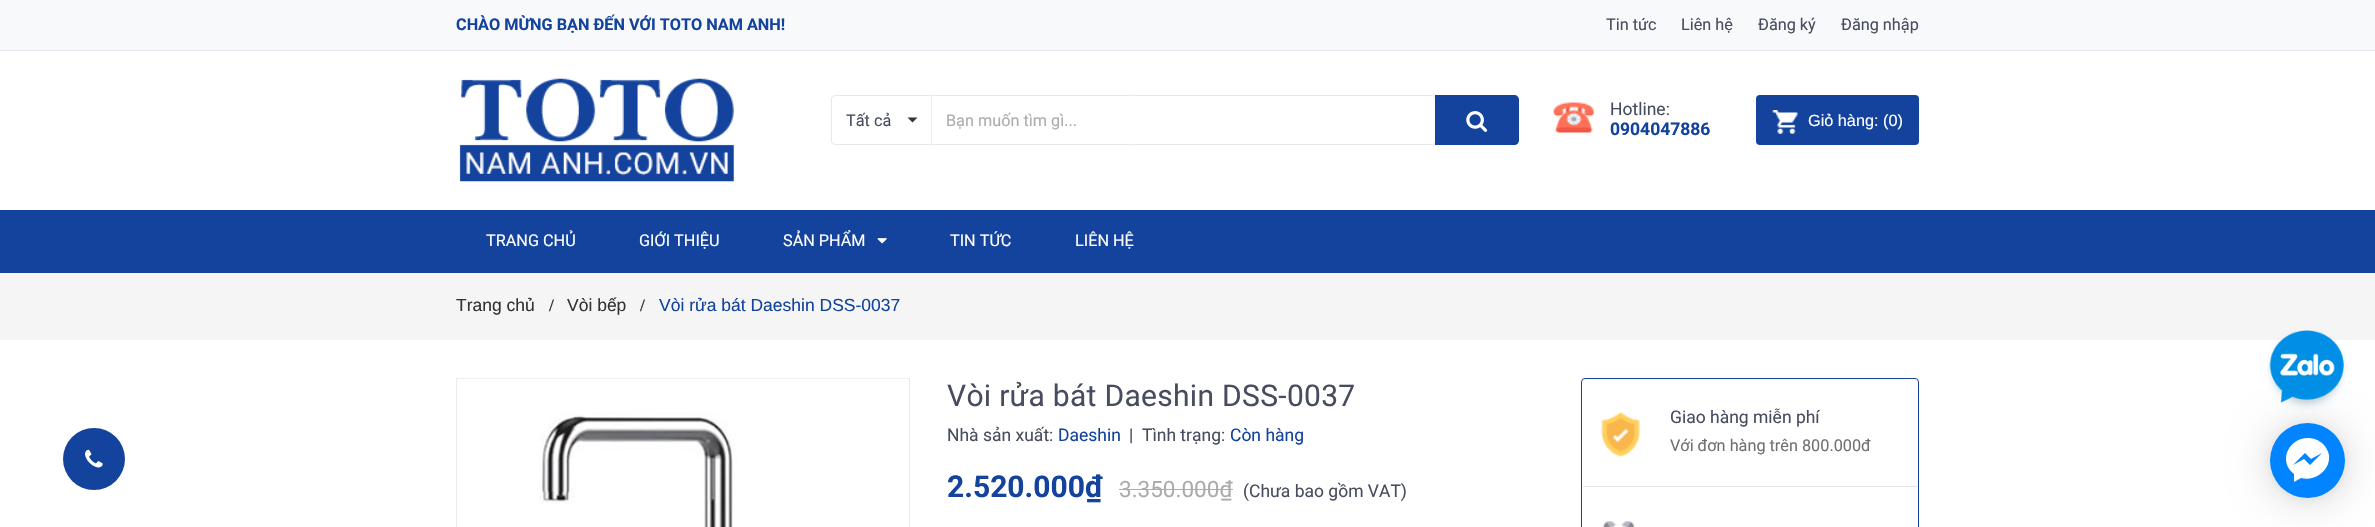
void draw(SkCanvas* c) {
SkPaint p;
p.setAntiAlias(true);
auto F=[&](const char* family, int weight, float size, bool italic = false){SkFontStyle style(weight, SkFontStyle::kNormal_Width,italic ? SkFontStyle::kItalic_Slant : SkFontStyle::kUpright_Slant);SkFont result(fontMgr->matchFamilyStyle(family, style), size);result.setSubpixel(true);return result;};
auto T=[&](const char* s, float x, float y, const SkFont& font){c->drawString(s, x, y, font, p);};
auto L=[&](const char* s, float x, float y, const SkFont& font, const SkPaint& ink, float letter, float word){std::vector<SkGlyphID> glyphs(font.countText(s, strlen(s), SkTextEncoding::kUTF8));std::vector<float> xs(glyphs.size());font.textToGlyphs(s, strlen(s), SkTextEncoding::kUTF8, glyphs);font.getXPos(glyphs, xs, x);float extra = 0;for (size_t i = 0; i < glyphs.size(); i++) {xs[i] += extra;extra += letter + word * (glyphs[i] == font.unicharToGlyph(' '));}c->drawTextBlob(SkTextBlob::MakeFromPosHGlyphs(glyphs, xs, y, font), 0, 0, ink);};
auto R=[&](float x, float y, float w, float h){c->drawRect(SkRect::MakeXYWH(x, y, w, h), p);};
auto Q=[&](float x, float y, float w, float h, float radius){c->drawRoundRect(SkRect::MakeXYWH(x, y, w, h), radius, radius, p);};
auto I=[&](const char* path, float x, float y, float w, float h){auto image = SkImages::DeferredFromEncodedData(SkData::MakeFromFileName(path));c->drawImageRect(image, SkRect::MakeXYWH(x, y, w, h), SkSamplingOptions());};
auto P=[&](const char* data, bool evenOdd = false){SkPath result = *SkParsePath::FromSVGString(data);if (evenOdd) result.setFillType(SkPathFillType::kEvenOdd);return result;};
c->clear(0xffffffff);
p.setColor(0xfff8f9fb);
R(0,0,2375,50);
p.setColor(0xffe7e8ed);
R(0,50,2375,1);
auto f1 = F("Roboto",700,16.25);
p.setColor(0xff13439c);
T("CHÀO MỪNG BẠN ĐẾN VỚI TOTO NAM ANH!",456,30,f1);
auto f2 = F("Roboto",400,16.25);
p.setColor(0xff474c5f);
T("Tin tức",1606,30,f2);
T("Liên hệ",1681,30,f2);
T("Đăng ký",1758,30,f2);
T("Đăng nhập",1841,30,f2);
I("1.png",459,78,275,104);
p.setStroke(true);
p.setStrokeWidth(1);
p.setColor(0xffe7e8ed);
c->drawRoundRect(SkRect::MakeXYWH(831.5,95.5,604,49),3.5,3.5,p);
p.setStroke(false);
p.setColor(0xffebebeb);
R(931,95,1,50);
p.setColor(0xff474c5f);
T("Tất cả",846,126,f2);
p.setColor(0xff333333);
c->drawPath(P("M907.5 117.5h10l-5 5z"),p);
p.setColor(0xffacacac);
T("Bạn muốn tìm gì...",946,126,f2);
p.setColor(0xff13439c);
c->drawPath(P("M1435 95h79c3 0 5 2 5 5v40c0 3-2 5-5 5h-79z"),p);
I("2.png",1466,111,22,21);
I("3.png",1553,102,41,31);
auto f3 = F("Roboto",400,17.5);
p.setColor(0xff474c5f);
T("Hotline:",1610,115,f3);
auto f4 = F("Roboto",700,17.5);
p.setColor(0xff13439c);
T("0904047886",1610,135,f4);
Q(1756,95,163,50,4);
I("4.png",1772,110,26,24);
auto f5 = F("Liberation Sans",400,16.25);
p.setColor(0xffffffff);
T("Giỏ hàng: (0)",1808,126,f5);
p.setColor(0xff13439c);
R(0,210,2375,63);
p.setColor(0xffffffff);
T("TRANG CHỦ",486,246,f2);
T("GIỚI THIỆU",639,246,f2);
T("SẢN PHẨM",783,246,f2);
I("5.png",877,238,10,6);
T("TIN TỨC",950,246,f2);
T("LIÊN HỆ",1075,246,f2);
p.setColor(0xfff5f5f5);
R(0,273,2375,67);
auto f6 = F("Liberation Sans",400,17.5);
p.setColor(0xff333333);
T("Trang chủ",456,311,f6);
auto f7 = F("Liberation Serif",700,17.5);
p.setColor(0xff323c3f);
T("/",549,311,f7);
p.setColor(0xff333333);
T("Vòi bếp",567,311,f6);
p.setColor(0xff323c3f);
T("/",640,311,f7);
p.setColor(0xff13439c);
T("Vòi rửa bát Daeshin DSS-0037",659,311,f6);
p.setColor(0x29000000);
p.setMaskFilter(SkMaskFilter::MakeBlur(kNormal_SkBlurStyle, 20));
c->drawRoundRect(SkRect::MakeXYWH(2270,425,75,75),37.5,37.5,p);
p.setMaskFilter(nullptr);
I("6.png",2267,330,80,80);
p.setColor(0xff13439c);
c->drawCircle(94,459,31,p);
I("7.png",85,449,18,19);
p.setStroke(true);
p.setColor(0xffebebeb);
c->drawRect(SkRect::MakeXYWH(456.5,378.5,453,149),p);
I("8.png",458,378,450,149);
auto f8 = F("Roboto",400,30);
p.setStroke(false);
p.setColor(0xff474c5f);
L("Vòi rửa bát Daeshin DSS-0037",947,406,f8,p,.3,0);
T("Nhà sản xuất:",947,441,f3);
p.setColor(0xff13439c);
T("Daeshin",1058,441,f3);
p.setColor(0xff474c5f);
T("|  Tình trạng:",1129,441,f3);
p.setColor(0xff13439c);
T("Còn hàng",1230,441,f3);
auto f9 = F("Roboto",700,30);
T("2.520.000₫",947,497,f9);
auto f10 = F("Roboto",400,22.5);
p.setColor(0xffacacac);
T("3.350.000₫",1119,497,f10);
R(1119,489,114,1);
p.setColor(0xff474c5f);
T("(Chưa bao gồm VAT)",1243,497,f3);
p.setStroke(true);
p.setColor(0xff13439c);
c->drawRoundRect(SkRect::MakeXYWH(1581.5,378.5,337,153),3.5,3.5,p);
p.setStroke(false);
p.setColor(0xffe5e5e5);
R(1583,486,335,1);
I("9.png",1601,412,39,45);
p.setColor(0xff474c5f);
T("Giao hàng miễn phí",1670,423,f3);
p.setColor(0xff707070);
T("Với đơn hàng trên 800.000đ",1670,451,f2);
I("10.png",1602,521,33,6);
p.setColor(0x0f000000);
p.setMaskFilter(SkMaskFilter::MakeBlur(kNormal_SkBlurStyle, 4));
c->drawRoundRect(SkRect::MakeXYWH(2270,424,75,75),37.5,37.5,p);
p.setMaskFilter(nullptr);
p.setColor(0xff0084ff);
c->drawCircle(2307.5,460.5,37.5,p);
c->save();
c->clipPath(P("M2307.5 423c20.5 0 37.5 17 37.5 37.5c0 20.5-17 37.5-37.5 37.5c-20.5 0-37.5-17-37.5-37.5c0-20.5 17-37.5 37.5-37.5z"),true);
R(2278,430,60,60);
c->restore();
p.setColor(0xffffffff);
c->drawPath(P("M2308 438c-20 0-30 24-14 36v8l7-4c20 5 38-18 22-34c-4-4-10-6-15-6zm2 27l-6-6l-11 6l12-12l6 6l11-6z"),p);
}
